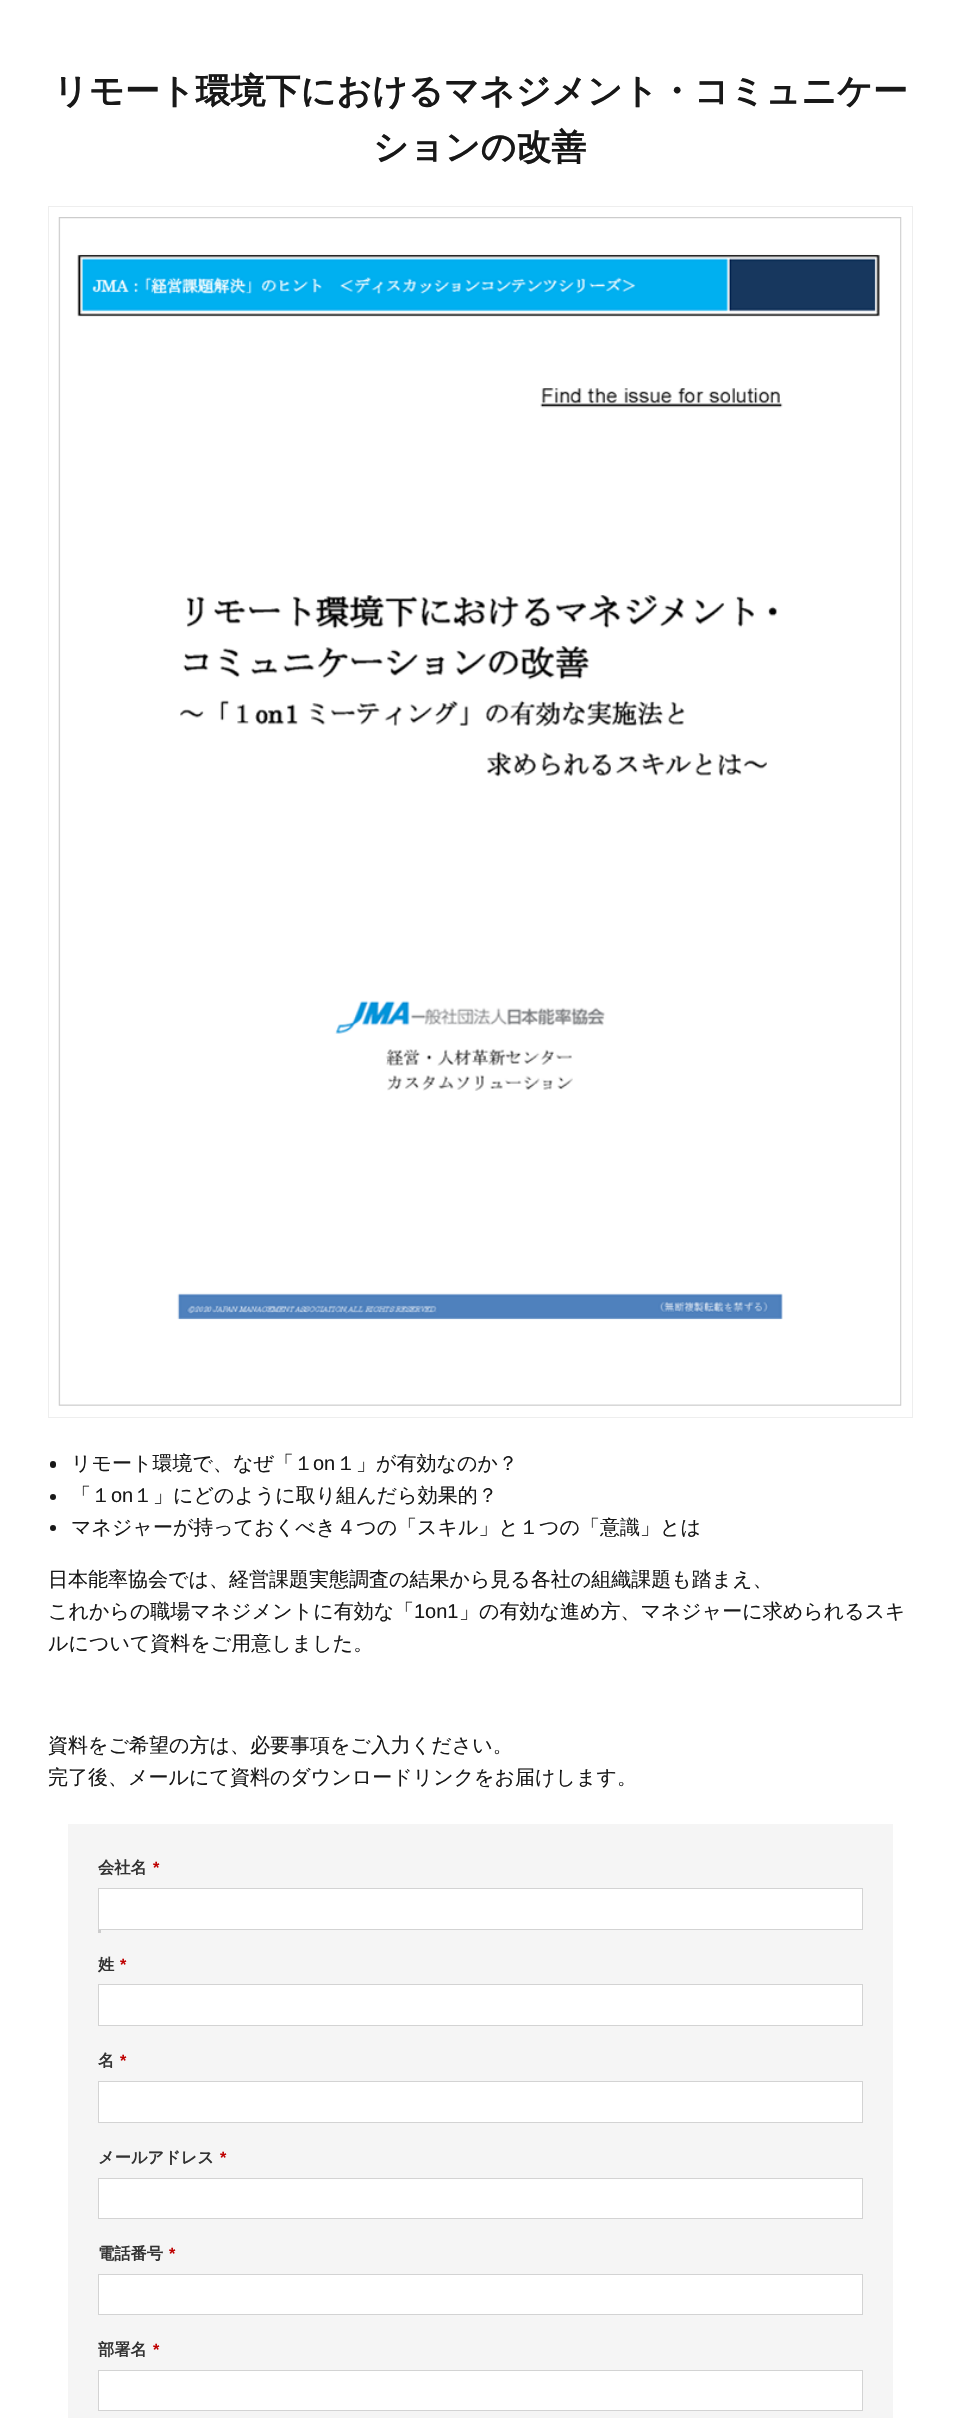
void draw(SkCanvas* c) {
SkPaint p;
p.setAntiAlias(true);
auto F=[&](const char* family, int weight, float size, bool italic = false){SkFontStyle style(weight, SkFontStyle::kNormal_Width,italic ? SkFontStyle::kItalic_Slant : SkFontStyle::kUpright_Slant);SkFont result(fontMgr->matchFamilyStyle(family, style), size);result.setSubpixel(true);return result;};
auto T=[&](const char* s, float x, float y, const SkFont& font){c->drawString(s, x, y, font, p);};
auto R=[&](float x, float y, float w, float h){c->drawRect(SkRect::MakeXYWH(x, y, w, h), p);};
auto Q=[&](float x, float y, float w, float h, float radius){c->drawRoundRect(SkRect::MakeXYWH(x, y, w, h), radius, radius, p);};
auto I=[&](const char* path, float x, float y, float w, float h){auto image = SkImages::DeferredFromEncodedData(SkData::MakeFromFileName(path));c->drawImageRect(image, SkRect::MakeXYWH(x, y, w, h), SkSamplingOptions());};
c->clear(0xffffffff);
auto f1 = F("WenQuanYi Zen Hei",700,35);
p.setColor(0xff181818);
T("リモート環境下におけるマネジメント・コミュニケー",53,103,f1);
T("ションの改善",373,159,f1);
p.setStroke(true);
p.setStrokeWidth(1);
p.setColor(0xffeeeeee);
c->drawRect(SkRect::MakeXYWH(48.5,206.5,864,1211),p);
I("1.png",58,217,844,1189);
p.setStroke(false);
p.setColor(0xff181818);
Q(50,1461,6,7,3);
auto f2 = F("WenQuanYi Zen Hei",500,20);
T("リモート環境で、なぜ「１",71,1470,f2);
auto f3 = F("Liberation Sans",400,20);
T("on",313,1470,f3);
T("１」が有効なのか？",336,1470,f2);
c->drawCircle(53,1497,3,p);
T("「１",71,1502,f2);
T("on",111,1502,f3);
T("１」にどのように取り組んだら効果的？",133,1502,f2);
c->drawCircle(53,1528,3,p);
T("マネジャーが持っておくべき４つの「スキル」と１つの「意識」とは",71,1534,f2);
T("日本能率協会では、経営課題実態調査の結果から見る各社の組織課題も踏まえ、",48,1586,f2);
T("これからの職場マネジメントに有効な「",48,1618,f2);
T("1on1",414,1618,f3);
T("」の有効な進め方、マネジャーに求められるスキ",459,1618,f2);
T("ルについて資料をご用意しました。",48,1650,f2);
T("資料をご希望の方は、必要事項をご入力ください。",48,1752,f2);
T("完了後、メールにて資料のダウンロードリンクをお届けします。",48,1784,f2);
p.setColor(0xfff5f5f5);
R(68,1824,825,594);
auto f4 = F("WenQuanYi Zen Hei",700,16.25);
p.setColor(0xff333333);
T("会社名",98,1873,f4);
auto f5 = F("Liberation Sans",700,16.25);
p.setColor(0xffbf0000);
T("*",153,1873,f5);
p.setColor(0xffffffff);
c->drawRect(SkRect::MakeXYWH(98.5,1888.5,764,41),p);
p.setStroke(true);
p.setColor(0xffd3d3d3);
c->drawRect(SkRect::MakeXYWH(98.5,1888.5,764,41),p);
p.setStroke(false);
p.setColor(0xffcccccc);
R(98,1930,3,3);
p.setColor(0xff333333);
T("姓",98,1970,f4);
p.setColor(0xffbf0000);
T("*",120,1970,f5);
p.setColor(0xffffffff);
c->drawRect(SkRect::MakeXYWH(98.5,1984.5,764,41),p);
p.setStroke(true);
p.setColor(0xffd3d3d3);
c->drawRect(SkRect::MakeXYWH(98.5,1984.5,764,41),p);
p.setStroke(false);
p.setColor(0xff333333);
T("名",98,2066,f4);
p.setColor(0xffbf0000);
T("*",120,2066,f5);
p.setColor(0xffffffff);
c->drawRect(SkRect::MakeXYWH(98.5,2081.5,764,41),p);
p.setStroke(true);
p.setColor(0xffd3d3d3);
c->drawRect(SkRect::MakeXYWH(98.5,2081.5,764,41),p);
p.setStroke(false);
p.setColor(0xff333333);
T("メールアドレス",98,2163,f4);
p.setColor(0xffbf0000);
T("*",220,2163,f5);
p.setColor(0xffffffff);
c->drawRect(SkRect::MakeXYWH(98.5,2178.5,764,40),p);
p.setStroke(true);
p.setColor(0xffd3d3d3);
c->drawRect(SkRect::MakeXYWH(98.5,2178.5,764,40),p);
p.setStroke(false);
p.setColor(0xff333333);
T("電話番号",98,2259,f4);
p.setColor(0xffbf0000);
T("*",169,2259,f5);
p.setColor(0xffffffff);
c->drawRect(SkRect::MakeXYWH(98.5,2274.5,764,40),p);
p.setStroke(true);
p.setColor(0xffd3d3d3);
c->drawRect(SkRect::MakeXYWH(98.5,2274.5,764,40),p);
p.setStroke(false);
p.setColor(0xff333333);
T("部署名",98,2355,f4);
p.setColor(0xffbf0000);
T("*",153,2355,f5);
p.setColor(0xffffffff);
c->drawRect(SkRect::MakeXYWH(98.5,2370.5,764,40),p);
p.setStroke(true);
p.setColor(0xffd3d3d3);
c->drawRect(SkRect::MakeXYWH(98.5,2370.5,764,40),p);
}
